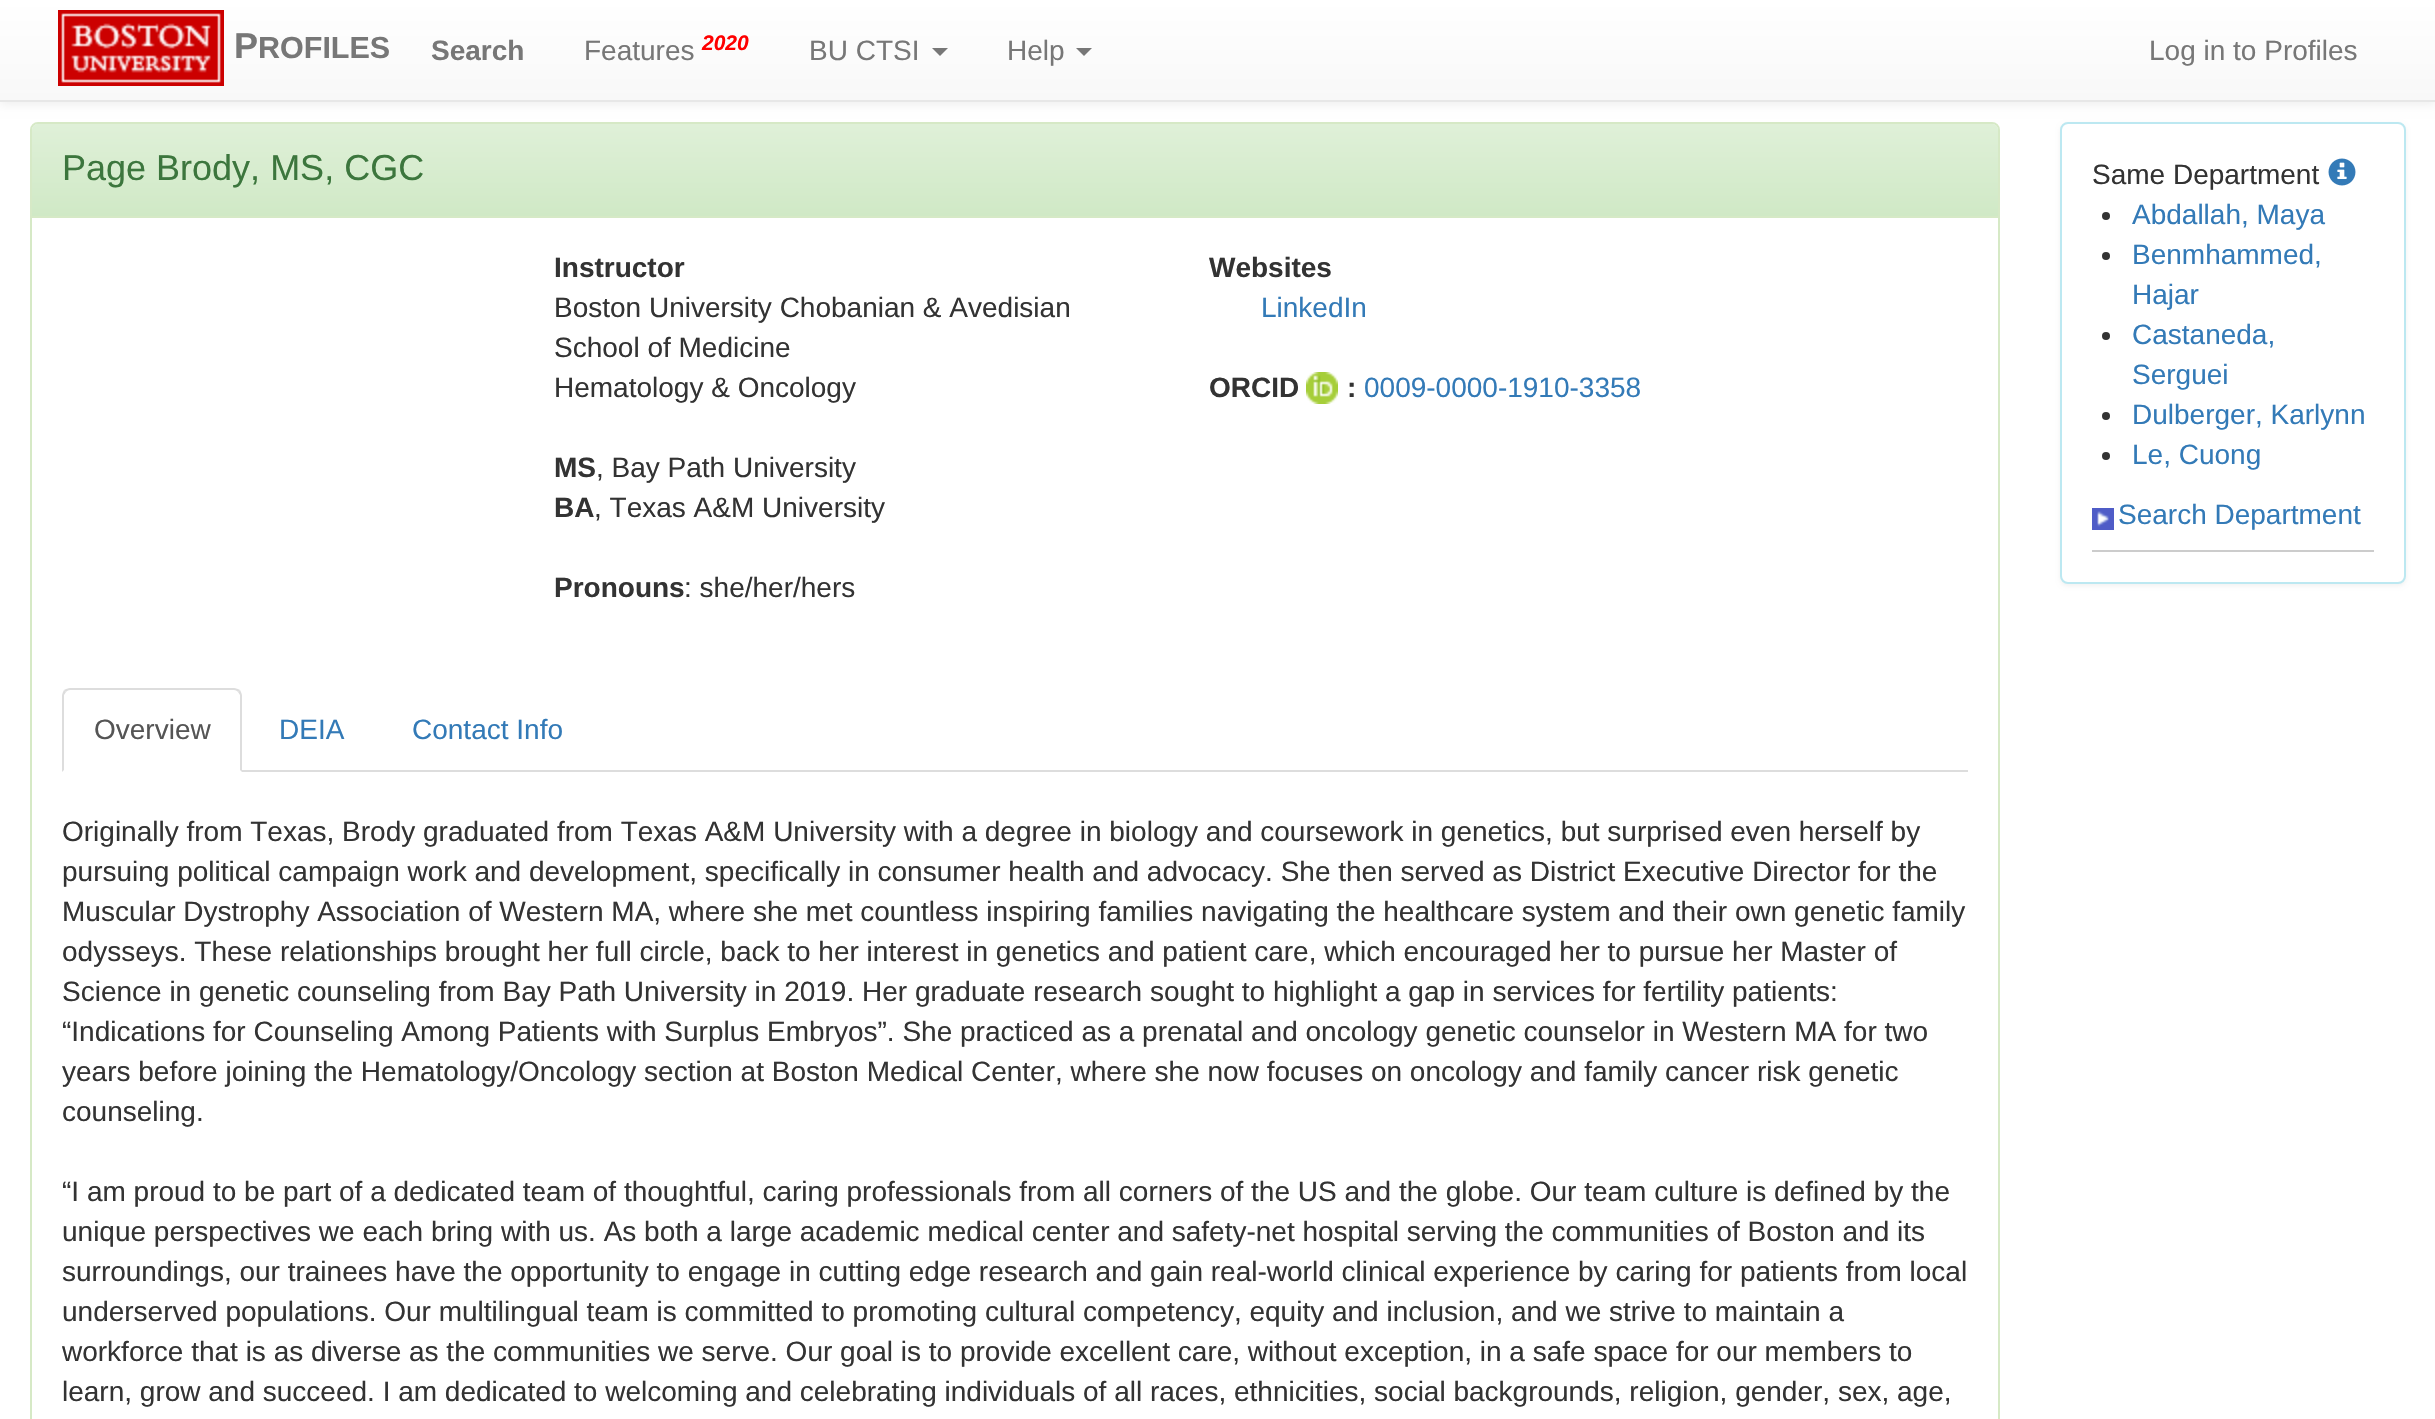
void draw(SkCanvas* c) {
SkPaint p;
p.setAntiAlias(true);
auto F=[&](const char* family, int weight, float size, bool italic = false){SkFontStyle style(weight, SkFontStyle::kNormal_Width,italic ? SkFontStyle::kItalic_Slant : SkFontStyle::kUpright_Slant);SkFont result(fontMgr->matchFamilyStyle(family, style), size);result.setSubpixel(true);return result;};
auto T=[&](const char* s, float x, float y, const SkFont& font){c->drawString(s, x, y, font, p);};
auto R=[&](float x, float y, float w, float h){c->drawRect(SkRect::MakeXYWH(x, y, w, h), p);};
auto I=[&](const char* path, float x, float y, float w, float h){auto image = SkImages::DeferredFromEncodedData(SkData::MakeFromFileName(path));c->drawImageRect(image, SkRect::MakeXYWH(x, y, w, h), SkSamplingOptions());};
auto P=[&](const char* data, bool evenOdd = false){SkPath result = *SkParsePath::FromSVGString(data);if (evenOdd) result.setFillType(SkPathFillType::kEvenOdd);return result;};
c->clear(0xffffffff);
p.setColor(0x12000000);
p.setMaskFilter(SkMaskFilter::MakeBlur(kNormal_SkBlurStyle, 5));
c->drawRect(SkRect::MakeXYWH(0,2,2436,102),p);
p.setMaskFilter(nullptr);
{
const SkColor colors[] = {0xffffffff,0xfff8f8f8};
const float stops[] = {0,1};
const SkPoint ends[] = {{1218,0}, {1218,100}};
p.setShader(SkGradientShader::MakeLinear(ends, colors, stops, 2, SkTileMode::kClamp));
p.setAlpha(255);
}
R(0,0,2435,100);
p.setShader(nullptr);
p.setColor(0xffe7e7e7);
R(0,100,2435,2);
I("1.png",58,10,166,76);
auto f1 = F("Liberation Sans",700,36);
p.setColor(0xff777777);
T("P",234,58,f1);
auto f2 = F("Liberation Sans",700,30.5);
T("ROFILES",258,58,f2);
auto f3 = F("Liberation Sans",700,28);
T("Search",431,60,f3);
auto f4 = F("Liberation Sans",400,28);
T("Features",584,60,f4);
auto f5 = F("Liberation Sans",700,21,true);
p.setColor(0xffff0000);
T("2020",702,50,f5);
p.setColor(0xff777777);
T("BU CTSI",809,60,f4);
c->drawPath(P("M932 48h16l-8 8z"),p);
T("Help",1007,60,f4);
c->drawPath(P("M1076 48h16l-8 8z"),p);
T("Log in to Profiles",2149,60,f4);
p.setStroke(true);
p.setStrokeWidth(2);
p.setColor(0xffd6e9c6);
c->drawRoundRect(SkRect::MakeXYWH(31,123,1968,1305),7,7,p);
p.setStroke(false);
{
const SkColor colors[] = {0xffdff0d8,0xffd0e9c6};
const float stops[] = {0,1};
const SkPoint ends[] = {{1015,124}, {1015,216}};
p.setShader(SkGradientShader::MakeLinear(ends, colors, stops, 2, SkTileMode::kClamp));
p.setAlpha(255);
}
c->drawPath(P("M38 124h1954c3.5 0 6 2.5 6 6v86h-1966v-86c0-3.5 2.5-6 6-6z"),p);
p.setShader(nullptr);
p.setColor(0xffd6e9c6);
R(32,216,1966,2);
auto f6 = F("Liberation Sans",400,36);
p.setColor(0xff3c763d);
T("Page Brody, MS, CGC",62,180,f6);
p.setColor(0xff333333);
T("Instructor",554,277,f3);
T("Boston University Chobanian & Avedisian",554,317,f4);
T("School of Medicine",554,357,f4);
T("Hematology & Oncology",554,397,f4);
T("MS",554,477,f3);
T(", Bay Path University",596,477,f4);
T("BA",554,517,f3);
T(", Texas A&M University",594,517,f4);
T("Pronouns",554,597,f3);
T(": she/her/hers",684,597,f4);
T("Websites",1209,277,f3);
p.setColor(0xff337ab7);
T("LinkedIn",1261,317,f4);
p.setColor(0xff333333);
T("ORCID",1209,397,f3);
I("2.png",1306,372,32,32);
T(":",1347,397,f3);
p.setColor(0xff337ab7);
T("0009-0000-1910-3358",1364,397,f4);
p.setColor(0xffdddddd);
R(242,770,1726,2);
c->drawPath(P("M70 688c-2 0-4 1-6 2l2 2c1-1 2-2 4-2h164c2 0 3 1 4 2l2-2c-2-1-4-2-6-2z"),p);
c->drawPath(P("M242 772v-76c0-2-1-4-2-6l-2 2l2 3v75z"),p);
c->drawPath(P("M62 772l2-2v-75l2-3l-2-2c-1 2-2 4-2 6z"),p);
p.setColor(0xff555555);
T("Overview",94,739,f4);
p.setColor(0xff337ab7);
T("DEIA",279,739,f4);
T("Contact Info",412,739,f4);
p.setColor(0xff333333);
T("Originally from Texas, Brody graduated from Texas A&M University with a degree in biology and coursework in genetics, but surprised even herself by",62,841,f4);
T("pursuing political campaign work and development, specifically in consumer health and advocacy. She then served as District Executive Director for the",62,881,f4);
T("Muscular Dystrophy Association of Western MA, where she met countless inspiring families navigating the healthcare system and their own genetic family",62,921,f4);
T("odysseys. These relationships brought her full circle, back to her interest in genetics and patient care, which encouraged her to pursue her Master of",62,961,f4);
T("Science in genetic counseling from Bay Path University in 2019. Her graduate research sought to highlight a gap in services for fertility patients:",62,1001,f4);
T("“Indications for Counseling Among Patients with Surplus Embryos”. She practiced as a prenatal and oncology genetic counselor in Western MA for two",62,1041,f4);
T("years before joining the Hematology/Oncology section at Boston Medical Center, where she now focuses on oncology and family cancer risk genetic",62,1081,f4);
T("counseling.",62,1121,f4);
T("“I am proud to be part of a dedicated team of thoughtful, caring professionals from all corners of the US and the globe. Our team culture is defined by the",62,1201,f4);
T("unique perspectives we each bring with us. As both a large academic medical center and safety-net hospital serving the communities of Boston and its",62,1241,f4);
T("surroundings, our trainees have the opportunity to engage in cutting edge research and gain real-world clinical experience by caring for patients from local",62,1281,f4);
T("underserved populations. Our multilingual team is committed to promoting cultural competency, equity and inclusion, and we strive to maintain a",62,1321,f4);
T("workforce that is as diverse as the communities we serve. Our goal is to provide excellent care, without exception, in a safe space for our members to",62,1361,f4);
T("learn, grow and succeed. I am dedicated to welcoming and celebrating individuals of all races, ethnicities, social backgrounds, religion, gender, sex, age,",62,1401,f4);
p.setColor(0x0d000000);
p.setMaskFilter(SkMaskFilter::MakeBlur(kNormal_SkBlurStyle, 2));
c->drawRoundRect(SkRect::MakeXYWH(2060,124,346,462),8,8,p);
p.setMaskFilter(nullptr);
p.setColor(0xffffffff);
c->drawRoundRect(SkRect::MakeXYWH(2061,123,344,460),7,7,p);
p.setStroke(true);
p.setColor(0xffbce8f1);
c->drawRoundRect(SkRect::MakeXYWH(2061,123,344,460),7,7,p);
p.setStroke(false);
p.setColor(0xff333333);
T("Same Department",2092,184,f4);
I("3.png",2328,158,28,28);
c->drawCircle(2106,216,4,p);
p.setColor(0xff337ab7);
T("Abdallah, Maya",2132,224,f4);
p.setColor(0xff333333);
c->drawCircle(2106,256,4,p);
p.setColor(0xff337ab7);
T("Benmhammed,",2132,264,f4);
T("Hajar",2132,304,f4);
p.setColor(0xff333333);
c->drawCircle(2106,336,4,p);
p.setColor(0xff337ab7);
T("Castaneda,",2132,344,f4);
T("Serguei",2132,384,f4);
p.setColor(0xff333333);
c->drawCircle(2106,416,4,p);
p.setColor(0xff337ab7);
T("Dulberger, Karlynn",2132,424,f4);
p.setColor(0xff333333);
c->drawCircle(2106,456,4,p);
p.setColor(0xff337ab7);
T("Le, Cuong",2132,464,f4);
I("4.png",2092,508,22,22);
T("Search Department",2118,524,f4);
p.setColor(0xffcccccc);
R(2092,550,282,2);
}
